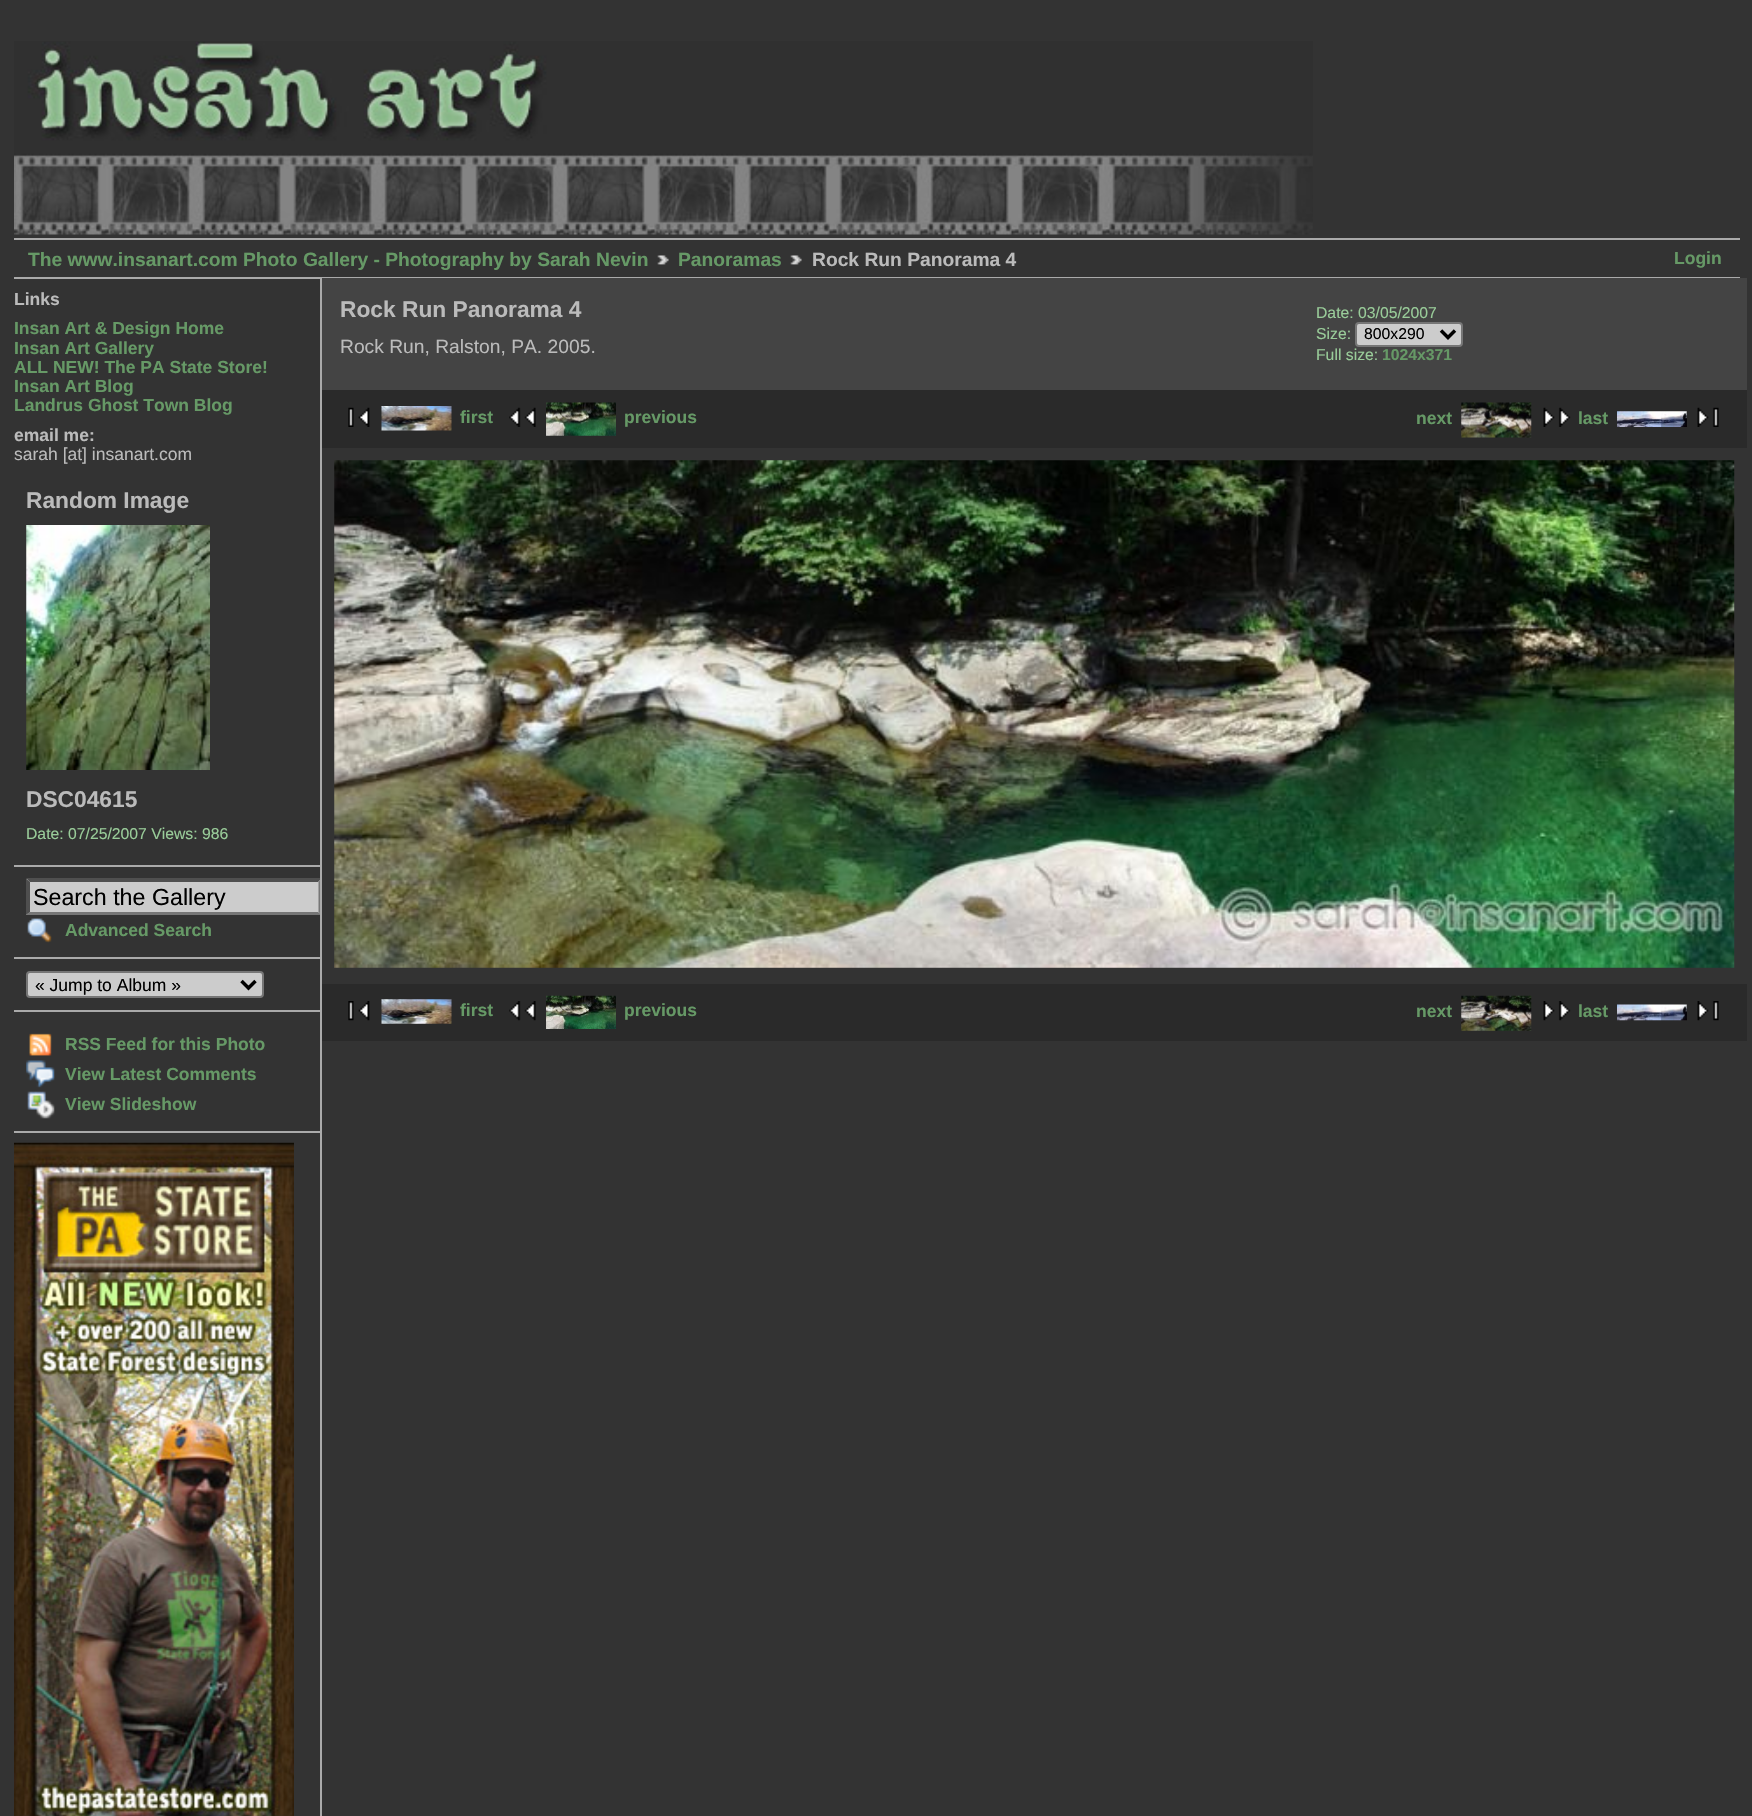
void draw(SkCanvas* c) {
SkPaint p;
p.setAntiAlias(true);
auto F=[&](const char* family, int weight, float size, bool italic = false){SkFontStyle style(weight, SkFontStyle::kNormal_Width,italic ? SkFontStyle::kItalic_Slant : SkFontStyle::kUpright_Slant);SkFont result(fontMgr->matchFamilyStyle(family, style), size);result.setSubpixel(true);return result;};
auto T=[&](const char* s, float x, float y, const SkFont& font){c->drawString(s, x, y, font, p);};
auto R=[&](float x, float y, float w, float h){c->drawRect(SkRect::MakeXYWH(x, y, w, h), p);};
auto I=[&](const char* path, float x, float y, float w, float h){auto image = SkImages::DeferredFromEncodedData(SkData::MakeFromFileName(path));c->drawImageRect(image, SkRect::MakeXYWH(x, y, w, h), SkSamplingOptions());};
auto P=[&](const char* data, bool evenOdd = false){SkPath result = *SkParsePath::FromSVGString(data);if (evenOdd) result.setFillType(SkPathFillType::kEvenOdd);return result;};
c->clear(0xff333333);
I("1.png",14,41,1299,194);
p.setColor(0xffaaaaaa);
R(14,238,1726,2);
R(14,277,1726,2);
auto f1 = F("Liberation Sans",700,19.25);
p.setColor(0xff669966);
T("The www.insanart.com Photo Gallery - Photography by Sarah Nevin",28,266,f1);
I("2.png",657,255,12,10);
T("Panoramas",678,266,f1);
I("3.png",790,255,12,10);
p.setColor(0xffbbbbbb);
T("Rock Run Panorama 4",812,266,f1);
auto f2 = F("Liberation Sans",700,17.5);
p.setColor(0xff669966);
T("Login",1674,264,f2);
p.setColor(0xffaaaaaa);
R(320,278,2,1538);
p.setColor(0xffbbbbbb);
T("Links",14,305,f2);
p.setColor(0xff669966);
T("Insan Art & Design Home",14,334,f2);
T("Insan Art Gallery",14,354,f2);
T("ALL NEW! The PA State Store!",14,373,f2);
T("Insan Art Blog",14,392,f2);
T("Landrus Ghost Town Blog",14,411,f2);
p.setColor(0xffbbbbbb);
T("email me:",14,441,f2);
auto f3 = F("Liberation Sans",400,17.5);
T("sarah [at] insanart.com",14,460,f3);
p.setColor(0xffaaaaaa);
R(14,865,306,2);
auto f4 = F("Liberation Sans",700,22.75);
p.setColor(0xffbbbbbb);
T("Random Image",26,508,f4);
I("4.png",26,525,184,245);
T("DSC04615",26,807,f4);
auto f5 = F("Liberation Sans",400,15.75);
p.setColor(0xff99cc99);
T("Date: 07/25/2007 Views: 986",26,839,f5);
p.setColor(0xffaaaaaa);
R(14,957,306,2);
p.setColor(0xffcccccc);
R(26,879,294,36);
c->save();
c->clipRect(SkRect::MakeXYWH(14,278,306,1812));
p.setColor(0xff4f4f4f);
c->drawPath(P("M26 878h296l-4 4h-288z"),p);
p.setColor(0xff767676);
c->drawPath(P("M322 878.5v36.5l-3.5-3v-30z"),p);
c->drawPath(P("M322 915h-296l4-3h288z"),p);
c->restore();
p.setColor(0xff4f4f4f);
c->drawPath(P("M26 915v-36.5l4 3.5v30z"),p);
auto f6 = F("Liberation Sans",400,23.25);
p.setColor(0xff000000);
T("Search the Gallery",33,905,f6);
I("5.png",27,918,25,25);
p.setColor(0xff669966);
T("Advanced Search",65,936,f2);
p.setColor(0xffaaaaaa);
R(14,1010,306,2);
p.setColor(0xffcccccc);
c->drawRoundRect(SkRect::MakeXYWH(27,972,236,25),3,3,p);
p.setStroke(true);
p.setStrokeWidth(2);
p.setColor(0xff767676);
c->drawRoundRect(SkRect::MakeXYWH(27,972,236,25),3,3,p);
p.setStrokeWidth(3.5);
p.setColor(0xff000000);
c->drawPath(P("M241.5 981l7 7l7-7"),p);
p.setStroke(false);
T("« Jump to Album »",35,991,f3);
p.setColor(0xffaaaaaa);
R(14,1131,306,2);
I("6.png",29,1033,23,23);
p.setColor(0xff669966);
T("RSS Feed for this Photo",65,1050,f2);
I("7.png",26,1060,29,28);
T("View Latest Comments",65,1080,f2);
I("8.png",27,1091,28,28);
T("View Slideshow",65,1110,f2);
I("9.png",14,1142,280,674);
p.setColor(0xff444444);
R(322,278,1425,112);
p.setColor(0xffbbbbbb);
T("Rock Run Panorama 4",340,317,f4);
auto f7 = F("Liberation Sans",400,19.25);
T("Rock Run, Ralston, PA. 2005.",340,353,f7);
p.setColor(0xff99cc99);
T("Date: 03/05/2007",1316,318,f5);
T("Size:",1316,339,f5);
p.setColor(0xffcccccc);
c->drawRoundRect(SkRect::MakeXYWH(1356,323,106,23),3,3,p);
p.setStroke(true);
p.setStrokeWidth(2);
p.setColor(0xff767676);
c->drawRoundRect(SkRect::MakeXYWH(1356,323,106,23),3,3,p);
p.setStrokeWidth(3.5);
p.setColor(0xff000000);
c->drawPath(P("M1441 330.5l7 7l7-7"),p);
p.setStroke(false);
T("800x290",1364,339,f5);
p.setColor(0xff99cc99);
T("Full size:",1316,360,f5);
auto f8 = F("Liberation Sans",700,15.75);
p.setColor(0xff669966);
T("1024x371",1382,360,f8);
p.setColor(0xff2a2a2a);
R(322,390,1425,58);
I("10.png",348,407,22,20);
I("11.png",381,406,71,25);
p.setColor(0xff669966);
T("first",460,423,f2);
I("12.png",509,407,27,20);
I("13.png",546,402,70,34);
T("previous",624,423,f2);
T("next",1416,424,f2);
I("14.png",1461,402,71,36);
I("15.png",1543,407,28,20);
T("last",1578,424,f2);
I("16.png",1617,411,70,16);
I("17.png",1697,407,22,20);
I("18.png",334,460,1401,508);
p.setColor(0xff2a2a2a);
R(322,984,1425,57);
I("19.png",348,1001,22,20);
I("20.png",381,999,71,25);
p.setColor(0xff669966);
T("first",460,1016,f2);
I("21.png",509,1001,27,20);
I("22.png",546,995,70,34);
T("previous",624,1016,f2);
T("next",1416,1017,f2);
I("23.png",1461,995,71,36);
I("24.png",1543,1001,28,20);
T("last",1578,1017,f2);
I("25.png",1617,1004,70,17);
I("26.png",1697,1001,22,20);
}
